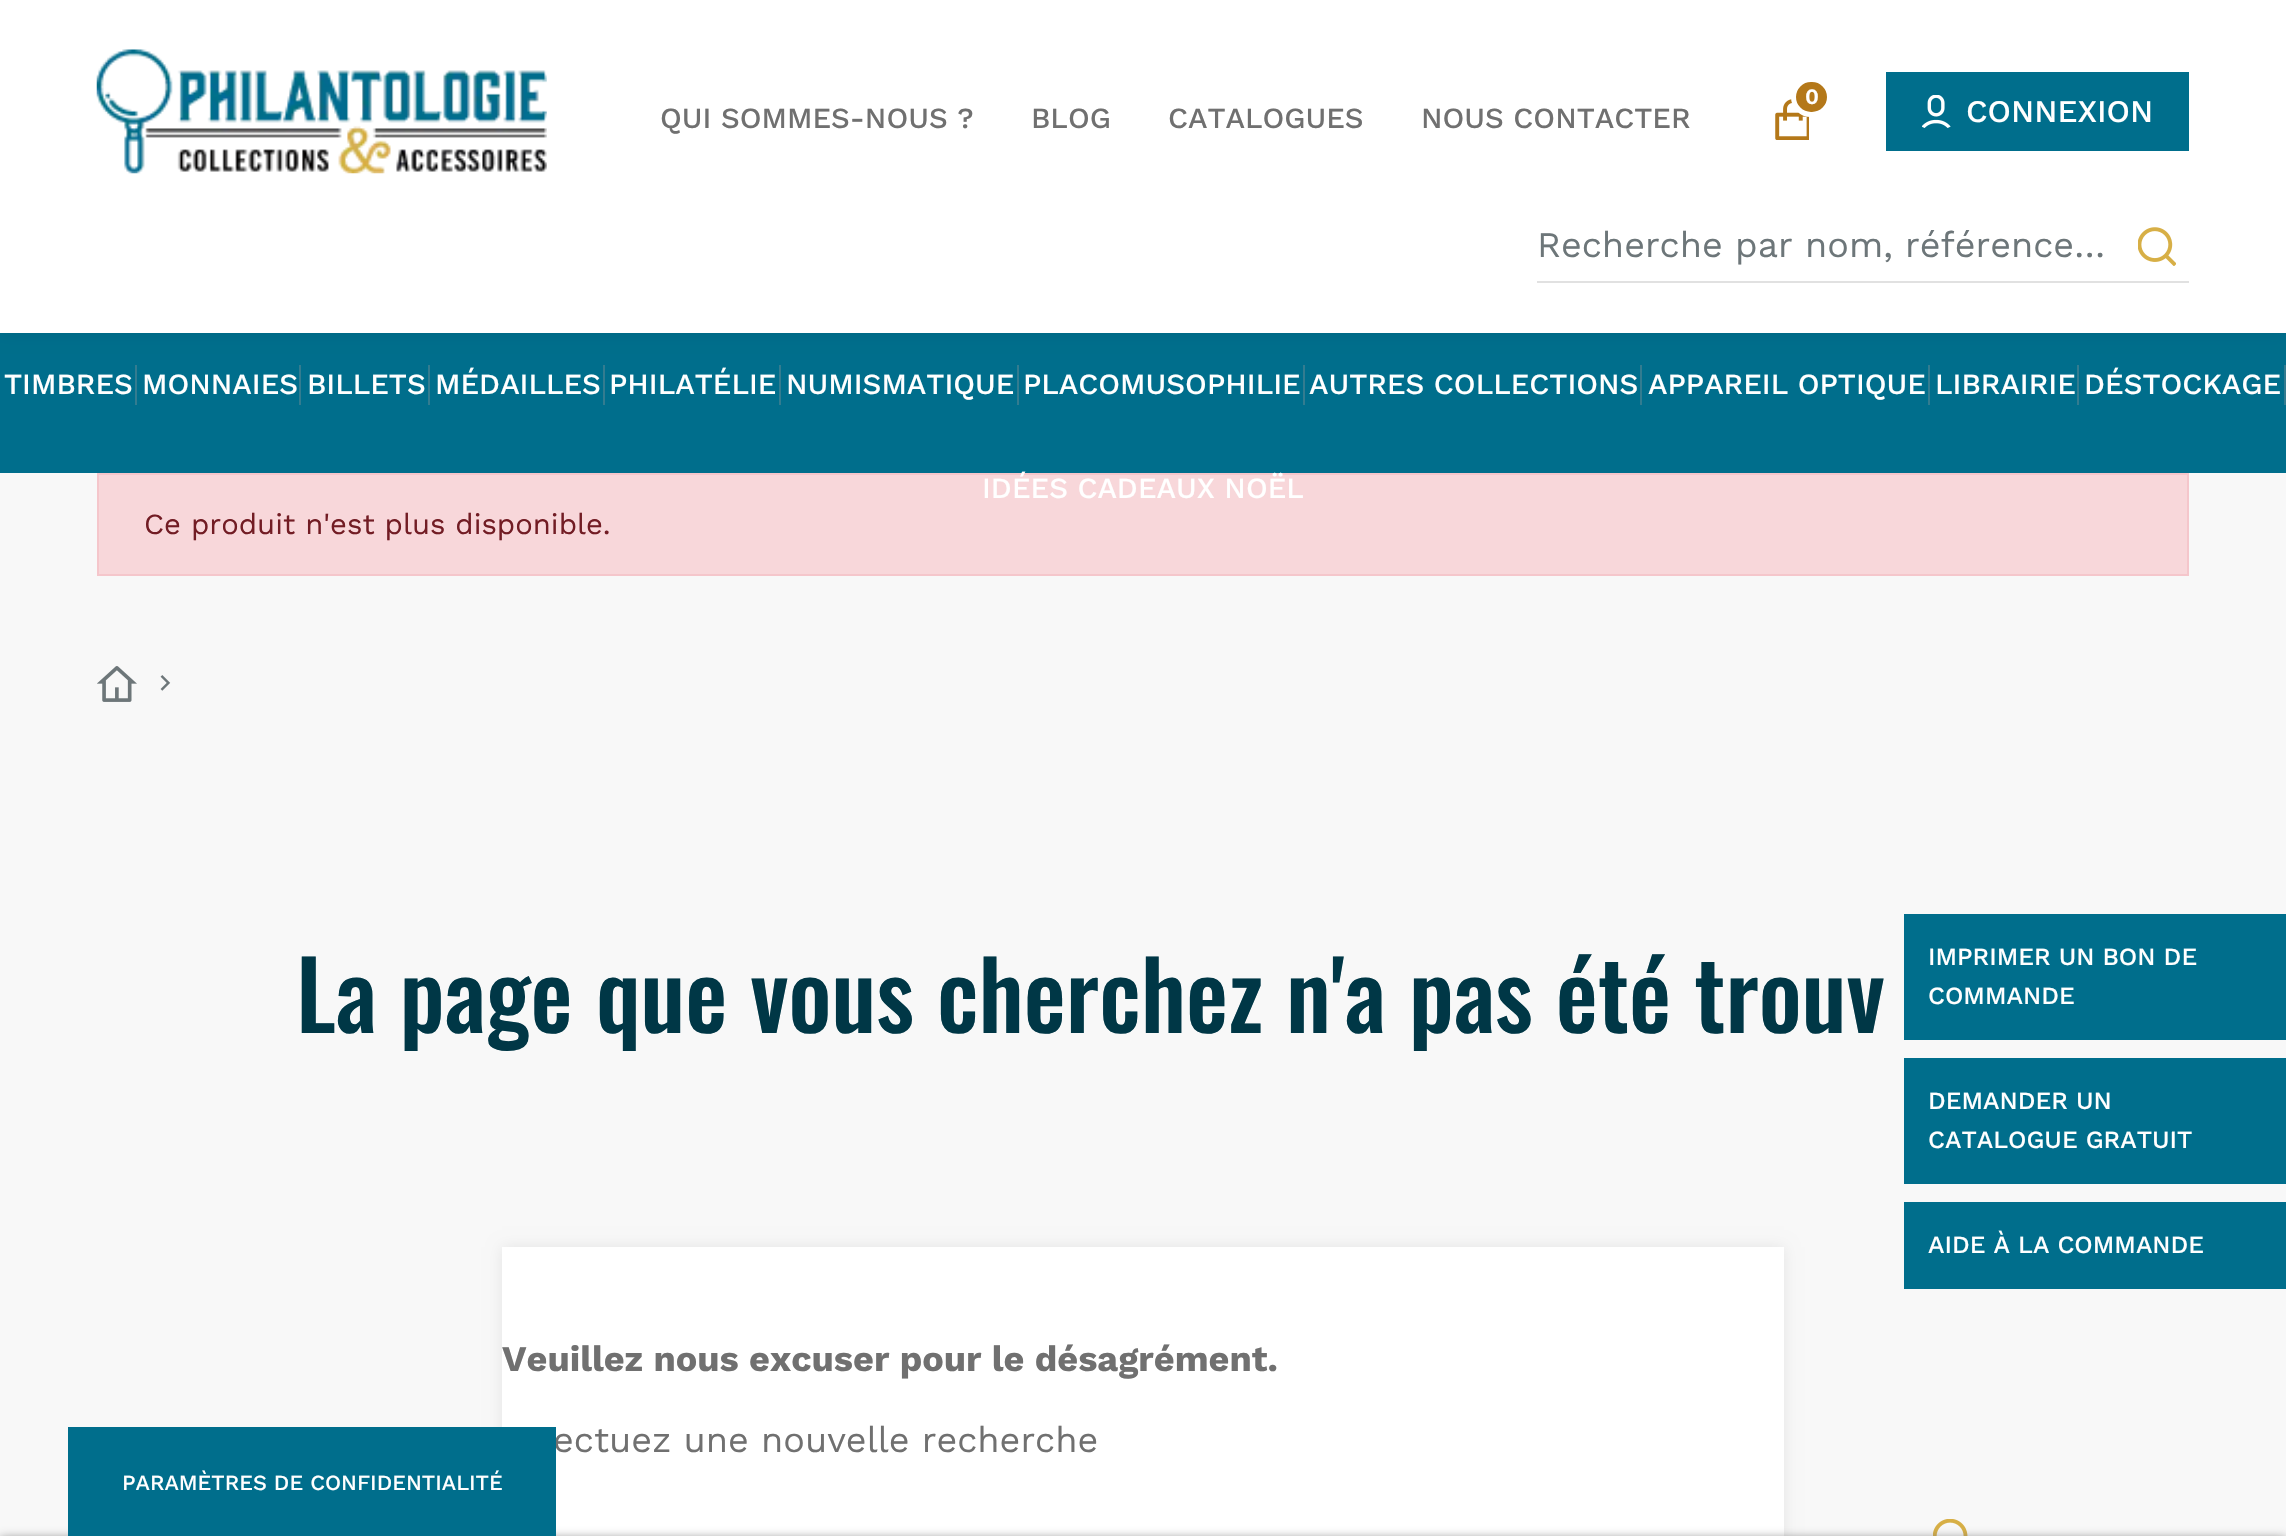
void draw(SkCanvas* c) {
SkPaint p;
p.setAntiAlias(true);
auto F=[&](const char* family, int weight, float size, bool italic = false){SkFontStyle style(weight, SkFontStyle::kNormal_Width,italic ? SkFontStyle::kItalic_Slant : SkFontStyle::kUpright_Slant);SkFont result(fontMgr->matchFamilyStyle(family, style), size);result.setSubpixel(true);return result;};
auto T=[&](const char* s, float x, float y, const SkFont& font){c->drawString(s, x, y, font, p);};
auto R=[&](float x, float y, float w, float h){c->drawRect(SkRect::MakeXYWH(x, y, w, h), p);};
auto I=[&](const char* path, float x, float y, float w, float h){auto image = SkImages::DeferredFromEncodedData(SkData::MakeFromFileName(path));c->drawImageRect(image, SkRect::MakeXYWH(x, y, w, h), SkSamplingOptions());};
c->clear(0xfff8f8f8);
p.setColor(0xff006e8c);
R(0,333,2286,140);
p.setColor(0x14000000);
p.setMaskFilter(SkMaskFilter::MakeBlur(kNormal_SkBlurStyle, 7));
c->drawRect(SkRect::MakeXYWH(0,0,2286,333),p);
p.setMaskFilter(nullptr);
p.setColor(0xffffffff);
R(0,0,2286,333);
I("1.png",96,49,451,125);
I("2.png",1775,99,34,41);
p.setColor(0xffb47819);
c->drawRoundRect(SkRect::MakeXYWH(1793.5,79.5,36,35),17.5,17.5,p);
p.setStroke(true);
p.setStrokeWidth(5);
p.setColor(0xffffffff);
c->drawRoundRect(SkRect::MakeXYWH(1793.5,79.5,36,35),17.5,17.5,p);
auto f1 = F("Work Sans",600,22);
p.setStroke(false);
T("0",1805,104,f1);
auto f2 = F("Work Sans",500,29.25);
p.setColor(0xff707070);
T("QUI SOMMES-NOUS ?",660,128,f2);
T("BLOG",1031,128,f2);
T("CATALOGUES",1168,128,f2);
T("NOUS CONTACTER",1421,128,f2);
p.setColor(0xff006e8c);
R(1886,72,303,79);
I("3.png",1922,95,29,33);
auto f3 = F("Work Sans",500,31.5);
p.setColor(0xffffffff);
T("CONNEXION",1966,122,f3);
p.setColor(0xffe1e1e1);
R(1537,281,652,2);
auto f4 = F("Work Sans",400,36);
p.setColor(0xff6d7679);
T("Recherche par nom, référence…",1537,257,f4);
I("4.png",2138,227,38,39);
p.setColor(0xffffffff);
T("TIMBRES",4,394,f2);
p.setColor(0xff337c90);
R(135,365,2,40);
p.setColor(0xffffffff);
T("MONNAIES",142,394,f2);
p.setColor(0xff337c90);
R(299,365,2,40);
p.setColor(0xffffffff);
T("BILLETS",307,394,f2);
p.setColor(0xff337c90);
R(428,365,2,40);
p.setColor(0xffffffff);
T("MÉDAILLES",435,394,f2);
p.setColor(0xff337c90);
R(603,365,2,40);
p.setColor(0xffffffff);
T("PHILATÉLIE",609,394,f2);
p.setColor(0xff337c90);
R(779,365,2,40);
p.setColor(0xffffffff);
T("NUMISMATIQUE",786,394,f2);
p.setColor(0xff337c90);
R(1017,365,2,40);
p.setColor(0xffffffff);
T("PLACOMUSOPHILIE",1023,394,f2);
p.setColor(0xff337c90);
R(1303,365,2,40);
p.setColor(0xffffffff);
T("AUTRES COLLECTIONS",1309,394,f2);
p.setColor(0xff337c90);
R(1640,365,2,40);
p.setColor(0xffffffff);
T("APPAREIL OPTIQUE",1648,394,f2);
p.setColor(0xff337c90);
R(1928,365,2,40);
p.setColor(0xffffffff);
T("LIBRAIRIE",1935,394,f2);
p.setColor(0xff337c90);
R(2077,365,2,40);
p.setColor(0xffffffff);
T("DÉSTOCKAGE",2084,394,f2);
p.setColor(0xff337c90);
R(2284,365,2,40);
p.setColor(0xfff8d7da);
c->drawRect(SkRect::MakeXYWH(98,474,2090,101),p);
p.setStroke(true);
p.setStrokeWidth(2);
p.setColor(0xfff5c6cb);
c->drawRect(SkRect::MakeXYWH(98,474,2090,101),p);
p.setStroke(false);
p.setColor(0xffffffff);
T("IDÉES CADEAUX NOËL",982,498,f2);
auto f5 = F("Work Sans",400,29.25);
p.setColor(0xff721c24);
T("Ce produit n'est plus disponible.",144,534,f5);
p.setColor(0xff006e8c);
R(1904,914,382,126);
auto f6 = F("Work Sans",500,24.75);
p.setColor(0xffffffff);
T("IMPRIMER UN BON DE",1928,965,f6);
T("COMMANDE",1928,1004,f6);
p.setColor(0xff006e8c);
R(1904,1058,382,126);
p.setColor(0xffffffff);
T("DEMANDER UN",1928,1109,f6);
T("CATALOGUE GRATUIT",1928,1148,f6);
p.setColor(0xff006e8c);
R(1904,1202,382,87);
p.setColor(0xffffffff);
T("AIDE À LA COMMANDE",1928,1253,f6);
p.setColor(0x14000000);
p.setMaskFilter(SkMaskFilter::MakeBlur(kNormal_SkBlurStyle, 7));
c->drawRect(SkRect::MakeXYWH(502,1247,1282,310),p);
p.setMaskFilter(nullptr);
p.setColor(0xffffffff);
R(502,1247,1282,289);
I("7.png",1933,1519,35,17);
p.setColor(0xff707070);
p.setMaskFilter(SkMaskFilter::MakeBlur(kNormal_SkBlurStyle, 5.5));
c->drawRect(SkRect::MakeXYWH(0,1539,2286,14),p);
p.setMaskFilter(nullptr);
T("ectuez une nouvelle recherche",553,1452,f4);
p.setColor(0xff006e8c);
R(68,1427,488,109);
auto f7 = F("Work Sans",500,21.6);
p.setColor(0xffffffff);
T("PARAMÈTRES DE CONFIDENTIALITÉ",122,1490,f7);
I("5.png",97,666,40,36);
I("6.png",160,675,11,16);
auto f8 = F("Oswald",500,94.5);
p.setColor(0xff003746);
T("La page que vous cherchez n'a pas été trouv",296,1033,f8);
auto f9 = F("Work Sans",700,36);
p.setColor(0xff707070);
T("Veuillez nous excuser pour le désagrément.",502,1371,f9);
}
